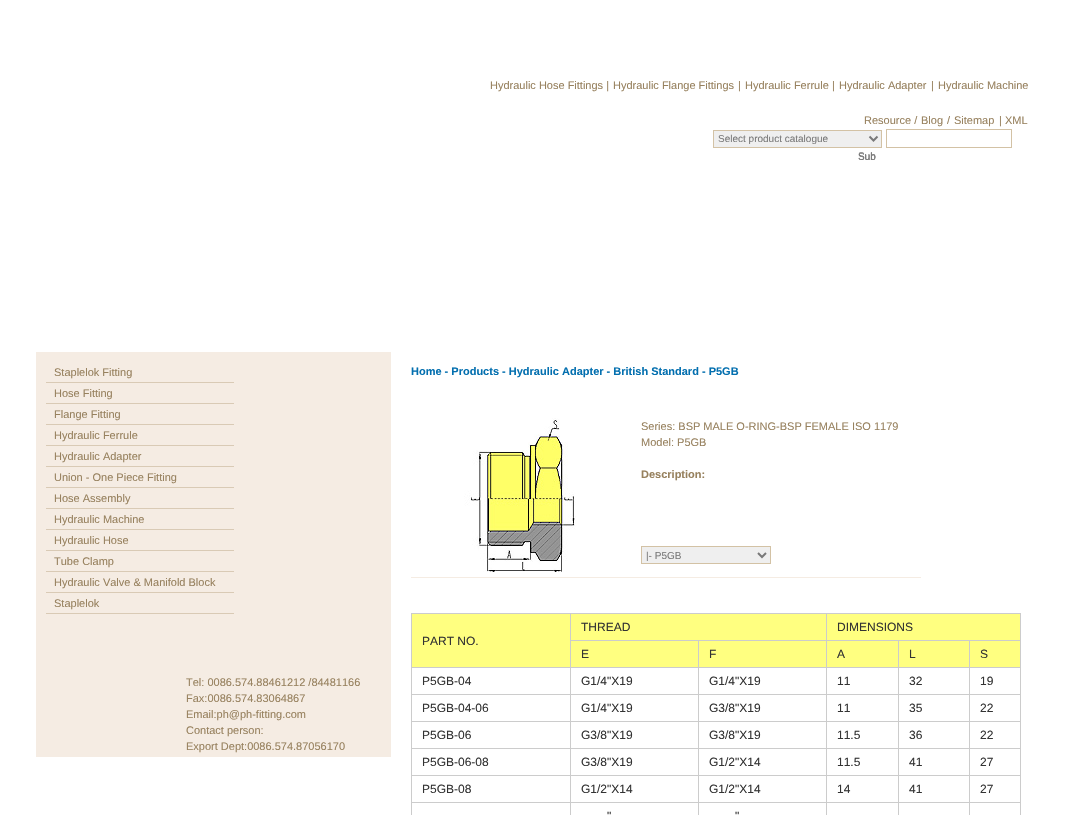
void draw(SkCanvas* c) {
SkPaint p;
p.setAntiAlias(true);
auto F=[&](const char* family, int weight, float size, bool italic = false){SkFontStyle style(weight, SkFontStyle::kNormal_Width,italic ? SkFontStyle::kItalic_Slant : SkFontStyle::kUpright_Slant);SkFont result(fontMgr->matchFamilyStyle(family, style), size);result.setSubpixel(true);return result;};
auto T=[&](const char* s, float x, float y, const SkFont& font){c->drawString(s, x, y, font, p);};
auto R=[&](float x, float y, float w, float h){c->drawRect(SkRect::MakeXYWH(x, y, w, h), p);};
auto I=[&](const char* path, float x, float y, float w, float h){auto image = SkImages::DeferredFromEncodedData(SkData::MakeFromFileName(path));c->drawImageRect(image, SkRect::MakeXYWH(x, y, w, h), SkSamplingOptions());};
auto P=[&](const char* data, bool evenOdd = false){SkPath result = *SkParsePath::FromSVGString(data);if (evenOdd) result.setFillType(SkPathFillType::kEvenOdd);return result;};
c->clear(0xffffffff);
auto f1 = F("Liberation Sans",400,11);
p.setColor(0xff97815e);
T("Hydraulic Hose Fittings |",490,89,f1);
T("Hydraulic Flange Fittings",613,89,f1);
T("|",738,89,f1);
T("Hydraulic Ferrule",745,89,f1);
T("|",832,89,f1);
T("Hydraulic Adapter",839,89,f1);
T("|",931,89,f1);
T("Hydraulic Machine",938,89,f1);
T("Resource /",864,124,f1);
T("Blog",921,124,f1);
T("/",947,124,f1);
T("Sitemap",954,124,f1);
T("|",999,124,f1);
T("XML",1005,124,f1);
p.setColor(0xffefefef);
c->drawRect(SkRect::MakeXYWH(713.5,130.5,168,17),p);
p.setStroke(true);
p.setStrokeWidth(1);
p.setColor(0xffd3c2a5);
c->drawRect(SkRect::MakeXYWH(713.5,130.5,168,17),p);
p.setStrokeWidth(2);
p.setColor(0xff797979);
c->drawPath(P("M869.5 136.5l4 4l4-4"),p);
auto f2 = F("Liberation Sans",400,10);
p.setStroke(false);
T("Select product catalogue",718,142,f2);
p.setStroke(true);
p.setStrokeWidth(1);
p.setColor(0xffd3c2a5);
c->drawRect(SkRect::MakeXYWH(886.5,129.5,125,18),p);
I("1.png",858,152,18,8);
p.setStroke(false);
p.setColor(0xff797979);
T("Sub",858,160,f2);
p.setColor(0xfff5ece3);
R(36,352,355,405);
p.setColor(0xffd9cab5);
R(46,382,188,1);
p.setColor(0xff97815e);
T("Staplelok Fitting",54,376,f1);
p.setColor(0xffd9cab5);
R(46,403,188,1);
p.setColor(0xff97815e);
T("Hose Fitting",54,397,f1);
p.setColor(0xffd9cab5);
R(46,424,188,1);
p.setColor(0xff97815e);
T("Flange Fitting",54,418,f1);
p.setColor(0xffd9cab5);
R(46,445,188,1);
p.setColor(0xff97815e);
T("Hydraulic Ferrule",54,439,f1);
p.setColor(0xffd9cab5);
R(46,466,188,1);
p.setColor(0xff97815e);
T("Hydraulic Adapter",54,460,f1);
p.setColor(0xffd9cab5);
R(46,487,188,1);
p.setColor(0xff97815e);
T("Union - One Piece Fitting",54,481,f1);
p.setColor(0xffd9cab5);
R(46,508,188,1);
p.setColor(0xff97815e);
T("Hose Assembly",54,502,f1);
p.setColor(0xffd9cab5);
R(46,529,188,1);
p.setColor(0xff97815e);
T("Hydraulic Machine",54,523,f1);
p.setColor(0xffd9cab5);
R(46,550,188,1);
p.setColor(0xff97815e);
T("Hydraulic Hose",54,544,f1);
p.setColor(0xffd9cab5);
R(46,571,188,1);
p.setColor(0xff97815e);
T("Tube Clamp",54,565,f1);
p.setColor(0xffd9cab5);
R(46,592,188,1);
p.setColor(0xff97815e);
T("Hydraulic Valve & Manifold Block",54,586,f1);
p.setColor(0xffd9cab5);
R(46,613,188,1);
p.setColor(0xff97815e);
T("Staplelok",54,607,f1);
T("Tel: 0086.574.88461212 /84481166",186,686,f1);
T("Fax:0086.574.83064867",186,702,f1);
T("Email:ph@ph-fitting.com",186,718,f1);
T("Contact person:",186,734,f1);
T("Export Dept:0086.574.87056170",186,750,f1);
auto f3 = F("Liberation Sans",700,11);
p.setColor(0xff036faf);
T("Home - Products - Hydraulic Adapter - British Standard - P5GB",411,375,f3);
p.setColor(0xfff5ece3);
R(411,577,510,1);
I("2.png",464,418,112,154);
p.setColor(0xff97815e);
T("Series: BSP MALE O-RING-BSP FEMALE ISO 1179",641,430,f1);
T("Model: P5GB",641,446,f1);
T("Description:",641,478,f3);
p.setColor(0xffefefef);
c->drawRect(SkRect::MakeXYWH(641.5,546.5,129,17),p);
p.setStroke(true);
p.setColor(0xffd3c2a5);
c->drawRect(SkRect::MakeXYWH(641.5,546.5,129,17),p);
p.setStrokeWidth(2);
p.setColor(0xff797979);
c->drawPath(P("M758 553l4 4l4-4"),p);
p.setStroke(false);
T("|- P5GB",646,559,f2);
p.setColor(0xffcccccc);
R(411,613,610,1);
R(1020,613,1,202);
R(411,613,1,202);
p.setColor(0xffffff80);
R(571,614,255,26);
auto f4 = F("Liberation Sans",400,12);
p.setColor(0xff333333);
T("THREAD",581,631,f4);
p.setColor(0xffffff80);
R(827,614,193,26);
p.setColor(0xffcccccc);
R(969,640,52,1);
R(969,667,52,1);
R(969,694,52,1);
R(969,721,52,1);
R(969,748,52,1);
R(969,775,52,1);
R(969,802,52,1);
R(969,802,1,13);
R(898,802,72,1);
R(969,775,1,28);
R(898,775,72,1);
R(969,748,1,28);
R(898,748,72,1);
R(969,721,1,28);
R(898,721,72,1);
R(969,694,1,28);
R(898,694,72,1);
R(969,667,1,28);
R(898,667,72,1);
R(969,640,1,28);
R(898,640,72,1);
R(898,802,1,13);
R(826,802,73,1);
R(898,775,1,28);
R(826,775,73,1);
R(898,748,1,28);
R(826,748,73,1);
R(898,721,1,28);
R(826,721,73,1);
R(898,694,1,28);
R(826,694,73,1);
R(898,667,1,28);
R(826,667,73,1);
R(898,640,1,28);
R(826,640,73,1);
R(826,802,1,13);
R(698,802,129,1);
R(826,775,1,28);
R(698,775,129,1);
R(826,748,1,28);
R(698,748,129,1);
R(826,721,1,28);
R(698,721,129,1);
R(826,694,1,28);
R(698,694,129,1);
R(826,667,1,28);
R(698,667,129,1);
R(826,640,1,28);
R(698,640,129,1);
R(826,613,1,28);
p.setColor(0xff333333);
T("DIMENSIONS",837,631,f4);
p.setColor(0xffffff80);
R(412,614,158,53);
p.setColor(0xff333333);
T("PART NO.",422,645,f4);
p.setColor(0xffffff80);
R(571,641,127,26);
p.setColor(0xffcccccc);
R(698,802,1,13);
R(570,802,129,1);
R(698,775,1,28);
R(570,775,129,1);
R(698,748,1,28);
R(570,748,129,1);
R(698,721,1,28);
R(570,721,129,1);
R(698,694,1,28);
R(570,694,129,1);
R(698,667,1,28);
R(570,667,129,1);
R(698,640,1,28);
R(570,640,129,1);
R(570,802,1,13);
R(411,802,160,1);
R(570,775,1,28);
R(411,775,160,1);
R(570,748,1,28);
R(411,748,160,1);
R(570,721,1,28);
R(411,721,160,1);
R(570,694,1,28);
R(411,694,160,1);
R(570,667,1,28);
R(411,667,160,1);
R(570,613,1,55);
p.setColor(0xff333333);
T("E",581,658,f4);
p.setColor(0xffffff80);
R(699,641,127,26);
p.setColor(0xff333333);
T("F",709,658,f4);
p.setColor(0xffffff80);
R(827,641,71,26);
p.setColor(0xff333333);
T("A",837,658,f4);
p.setColor(0xffffff80);
R(899,641,70,26);
p.setColor(0xff333333);
T("L",909,658,f4);
p.setColor(0xffffff80);
R(970,641,50,26);
p.setColor(0xff333333);
T("S",980,658,f4);
T("P5GB-04",422,685,f4);
T("G1/4\"X19",581,685,f4);
T("G1/4\"X19",709,685,f4);
T("11",837,685,f4);
T("32",909,685,f4);
T("19",980,685,f4);
T("P5GB-04-06",422,712,f4);
T("G1/4\"X19",581,712,f4);
T("G3/8\"X19",709,712,f4);
T("11",837,712,f4);
T("35",909,712,f4);
T("22",980,712,f4);
T("P5GB-06",422,739,f4);
T("G3/8\"X19",581,739,f4);
T("G3/8\"X19",709,739,f4);
T("11.5",837,739,f4);
T("36",909,739,f4);
T("22",980,739,f4);
T("P5GB-06-08",422,766,f4);
T("G3/8\"X19",581,766,f4);
T("G1/2\"X14",709,766,f4);
T("11.5",837,766,f4);
T("41",909,766,f4);
T("27",980,766,f4);
T("P5GB-08",422,793,f4);
T("G1/2\"X14",581,793,f4);
T("G1/2\"X14",709,793,f4);
T("14",837,793,f4);
T("41",909,793,f4);
T("27",980,793,f4);
T("\"",607,820,f4);
T("\"",735,820,f4);
}
